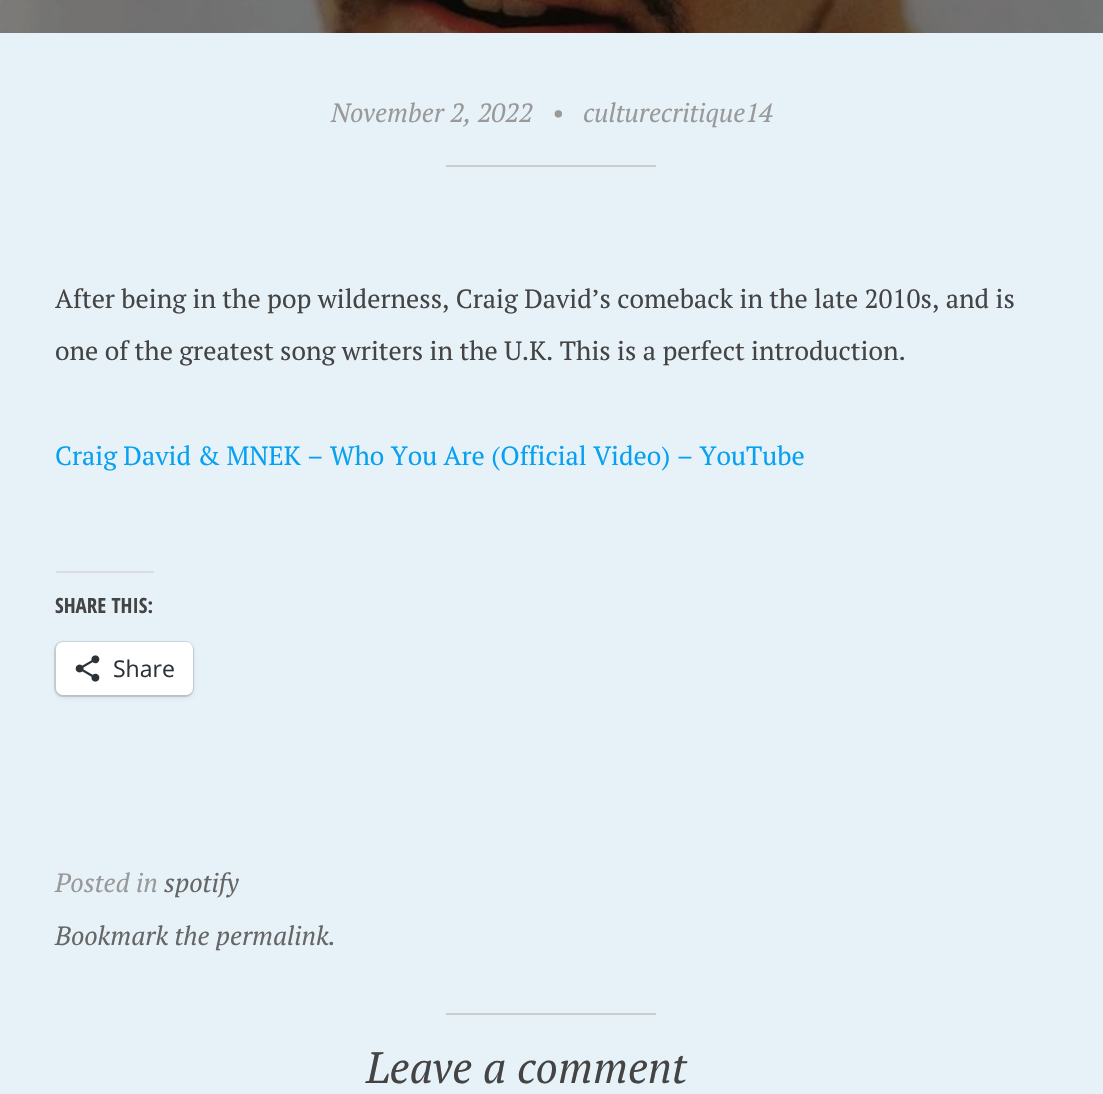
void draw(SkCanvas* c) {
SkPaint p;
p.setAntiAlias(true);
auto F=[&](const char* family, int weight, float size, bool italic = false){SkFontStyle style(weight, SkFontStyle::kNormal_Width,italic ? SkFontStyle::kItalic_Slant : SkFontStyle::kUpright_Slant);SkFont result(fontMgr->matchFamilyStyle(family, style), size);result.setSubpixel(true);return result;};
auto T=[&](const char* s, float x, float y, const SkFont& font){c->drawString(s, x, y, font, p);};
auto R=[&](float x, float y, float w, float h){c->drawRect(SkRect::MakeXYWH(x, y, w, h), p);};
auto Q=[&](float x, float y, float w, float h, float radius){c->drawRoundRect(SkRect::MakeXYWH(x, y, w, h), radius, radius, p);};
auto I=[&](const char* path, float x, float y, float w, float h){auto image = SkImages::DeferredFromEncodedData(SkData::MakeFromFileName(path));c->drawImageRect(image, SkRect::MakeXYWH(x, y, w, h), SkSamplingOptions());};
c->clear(0xffe7f2f8);
I("1.png",0,0,1103,33);
auto f1 = F("PT Serif",400,26.25,true);
p.setColor(0xff999999);
T("November 2, 2022",331,122,f1);
T("•",552,122,f1);
T("culturecritique14",583,122,f1);
p.setColor(0xffcccccc);
R(446,165,210,2);
auto f2 = F("PT Serif",400,26.25);
p.setColor(0xff444444);
T("After being in the pop wilderness, Craig David’s comeback in the late 2010s, and is",55,308,f2);
T("one of the greatest song writers in the U.K. This is a perfect introduction.",55,360,f2);
p.setColor(0xff07a1f2);
T("Craig David & MNEK – Who You Are (Official Video) – YouTube",55,465,f2);
p.setColor(0xffdcdcde);
R(56,571,98,2);
auto f3 = F("Open Sans Condensed",700,21);
p.setColor(0xff444444);
T("SHARE THIS:",55,613,f3);
p.setStroke(true);
p.setStrokeWidth(2);
p.setColor(0xffcbd5da);
c->drawRoundRect(SkRect::MakeXYWH(55,642,138,54),8,8,p);
p.setStroke(false);
p.setColor(0x1f000000);
p.setMaskFilter(SkMaskFilter::MakeBlur(kNormal_SkBlurStyle, 2));
c->drawRoundRect(SkRect::MakeXYWH(56,644,137,53),7,7,p);
p.setMaskFilter(nullptr);
p.setColor(0xffffffff);
Q(56,642,137,53,7);
I("2.png",75,655,25,27);
auto f4 = F("Open Sans",400,23);
p.setColor(0xff2c3338);
T("Share",113,677,f4);
p.setColor(0xff999999);
T("Posted in",55,892,f1);
p.setColor(0xff666666);
T("spotify",164,892,f1);
T("Bookmark the permalink.",55,945,f1);
p.setColor(0xffcccccc);
R(446,1013,210,2);
auto f5 = F("PT Serif",400,43.75,true);
p.setColor(0xff444444);
T("Leave a comment",366,1083,f5);
}
